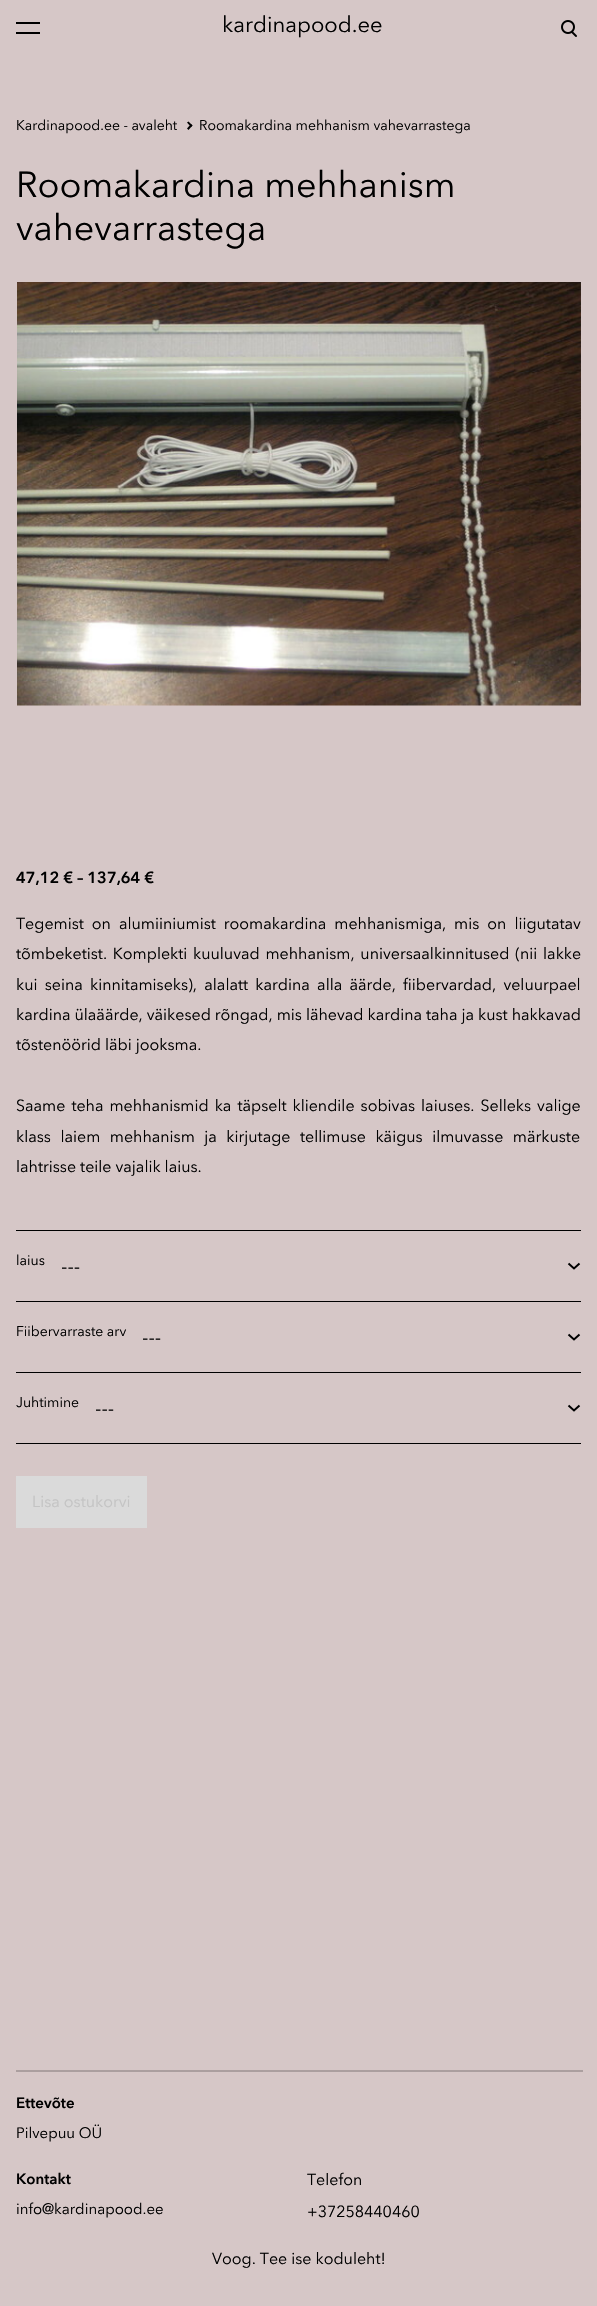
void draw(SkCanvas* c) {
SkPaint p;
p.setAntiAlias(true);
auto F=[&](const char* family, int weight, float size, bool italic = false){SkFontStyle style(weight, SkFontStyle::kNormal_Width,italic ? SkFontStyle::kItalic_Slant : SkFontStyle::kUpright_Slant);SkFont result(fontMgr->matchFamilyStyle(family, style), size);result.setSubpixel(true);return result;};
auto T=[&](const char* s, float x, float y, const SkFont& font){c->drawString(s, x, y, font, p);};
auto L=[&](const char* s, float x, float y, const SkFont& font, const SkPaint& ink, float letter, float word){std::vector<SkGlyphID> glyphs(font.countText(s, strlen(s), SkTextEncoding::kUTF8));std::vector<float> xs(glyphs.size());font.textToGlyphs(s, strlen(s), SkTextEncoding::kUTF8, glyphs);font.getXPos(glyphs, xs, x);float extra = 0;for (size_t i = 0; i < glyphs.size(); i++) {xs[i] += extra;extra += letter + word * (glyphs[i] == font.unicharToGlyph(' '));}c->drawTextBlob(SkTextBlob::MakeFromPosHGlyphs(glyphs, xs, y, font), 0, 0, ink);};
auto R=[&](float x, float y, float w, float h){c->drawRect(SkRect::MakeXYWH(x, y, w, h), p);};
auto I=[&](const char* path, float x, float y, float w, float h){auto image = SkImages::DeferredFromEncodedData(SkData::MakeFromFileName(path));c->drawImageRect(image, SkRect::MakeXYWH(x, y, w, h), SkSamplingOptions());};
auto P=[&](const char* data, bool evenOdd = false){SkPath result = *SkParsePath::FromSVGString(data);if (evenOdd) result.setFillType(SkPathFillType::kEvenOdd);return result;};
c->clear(0xffd6c7c7);
p.setColor(0xff000000);
R(16,22,24,2);
R(16,32,24,2);
auto f1 = F("Avenir Next",400,22);
T("kardinapood.ee",222,32,f1);
I("1.png",561,20,16,17);
auto f2 = F("Avenir Next",400,14);
T("Kardinapood.ee - avaleht",16,130,f2);
c->drawPath(P("M187 122.5l1.5-1l4 4l-1.5 1.5z"),p);
c->drawPath(P("M187 128.5l4-4.5l1.5 1.5l-4 4.5z"),p);
T("Roomakardina mehhanism vahevarrastega",199,130,f2);
auto f3 = F("Avenir Next",400,36);
T("Roomakardina mehhanism",16,197,f3);
T("vahevarrastega",16,240,f3);
I("2.png",17,282,564,424);
auto f4 = F("Avenir Next",700,16);
T("47,12 € – 137,64 €",16,883,f4);
auto f5 = F("Avenir Next",400,16);
L("Tegemist on alumiiniumist roomakardina mehhanismiga, mis on liigutatav",16,929,f5,p,0,4);
L("tõmbeketist. Komplekti kuuluvad mehhanism, universaalkinnitused (nii lakke",16,959,f5,p,0,1.75);
L("kui seina kinnitamiseks), alalatt kardina alla äärde, fiibervardad, veluurpael",16,990,f5,p,0,3.25);
T("kardina ülaäärde, väikesed rõngad, mis lähevad kardina taha ja kust hakkavad",16,1020,f5);
T("tõstenöörid läbi jooksma.",16,1050,f5);
L("Saame teha mehhanismid ka täpselt kliendile sobivas laiuses. Selleks valige",16,1111,f5,p,0,2);
L("klass laiem mehhanism ja kirjutage tellimuse käigus ilmuvasse märkuste",16,1142,f5,p,0,5.5);
T("lahtrisse teile vajalik laius.",16,1172,f5);
R(16,1230,565,1);
R(16,1301,565,1);
T("laius",16,1265,f2);
p.setStroke(true);
p.setStrokeWidth(2);
c->drawPath(P("M568.5 1263.5l5.5 5l5.5-5"),p);
auto f6 = F("Avenir Next",400,20);
p.setStroke(false);
T("---",61,1273,f6);
R(16,1372,565,1);
T("Fiibervarraste arv",16,1336,f2);
p.setStroke(true);
c->drawPath(P("M568.5 1334.5l5.5 5l5.5-5"),p);
p.setStroke(false);
T("---",142,1344,f6);
R(16,1443,565,1);
T("Juhtimine",16,1407,f2);
p.setStroke(true);
c->drawPath(P("M568.5 1405.5l5.5 5l5.5-5"),p);
p.setStroke(false);
T("---",95,1415,f6);
p.setColor(0xffdadada);
R(16,1476,131,52);
p.setColor(0xffc4c4c4);
T("Lisa ostukorvi",32,1507,f5);
p.setColor(0xffab9f9f);
R(16,2070,567,2);
auto f7 = F("Avenir Next",700,15);
p.setColor(0xff000000);
T("Ettevõte",16,2108,f7);
auto f8 = F("Avenir Next",400,15);
T("Pilvepuu OÜ",16,2138,f8);
T("Kontakt",16,2184,f7);
T("info@kardinapood.ee",16,2214,f8);
T("Telefon",307,2185,f5);
T("+37258440460",307,2217,f5);
T("Voog. Tee ise koduleht!",212,2264,f5);
}
